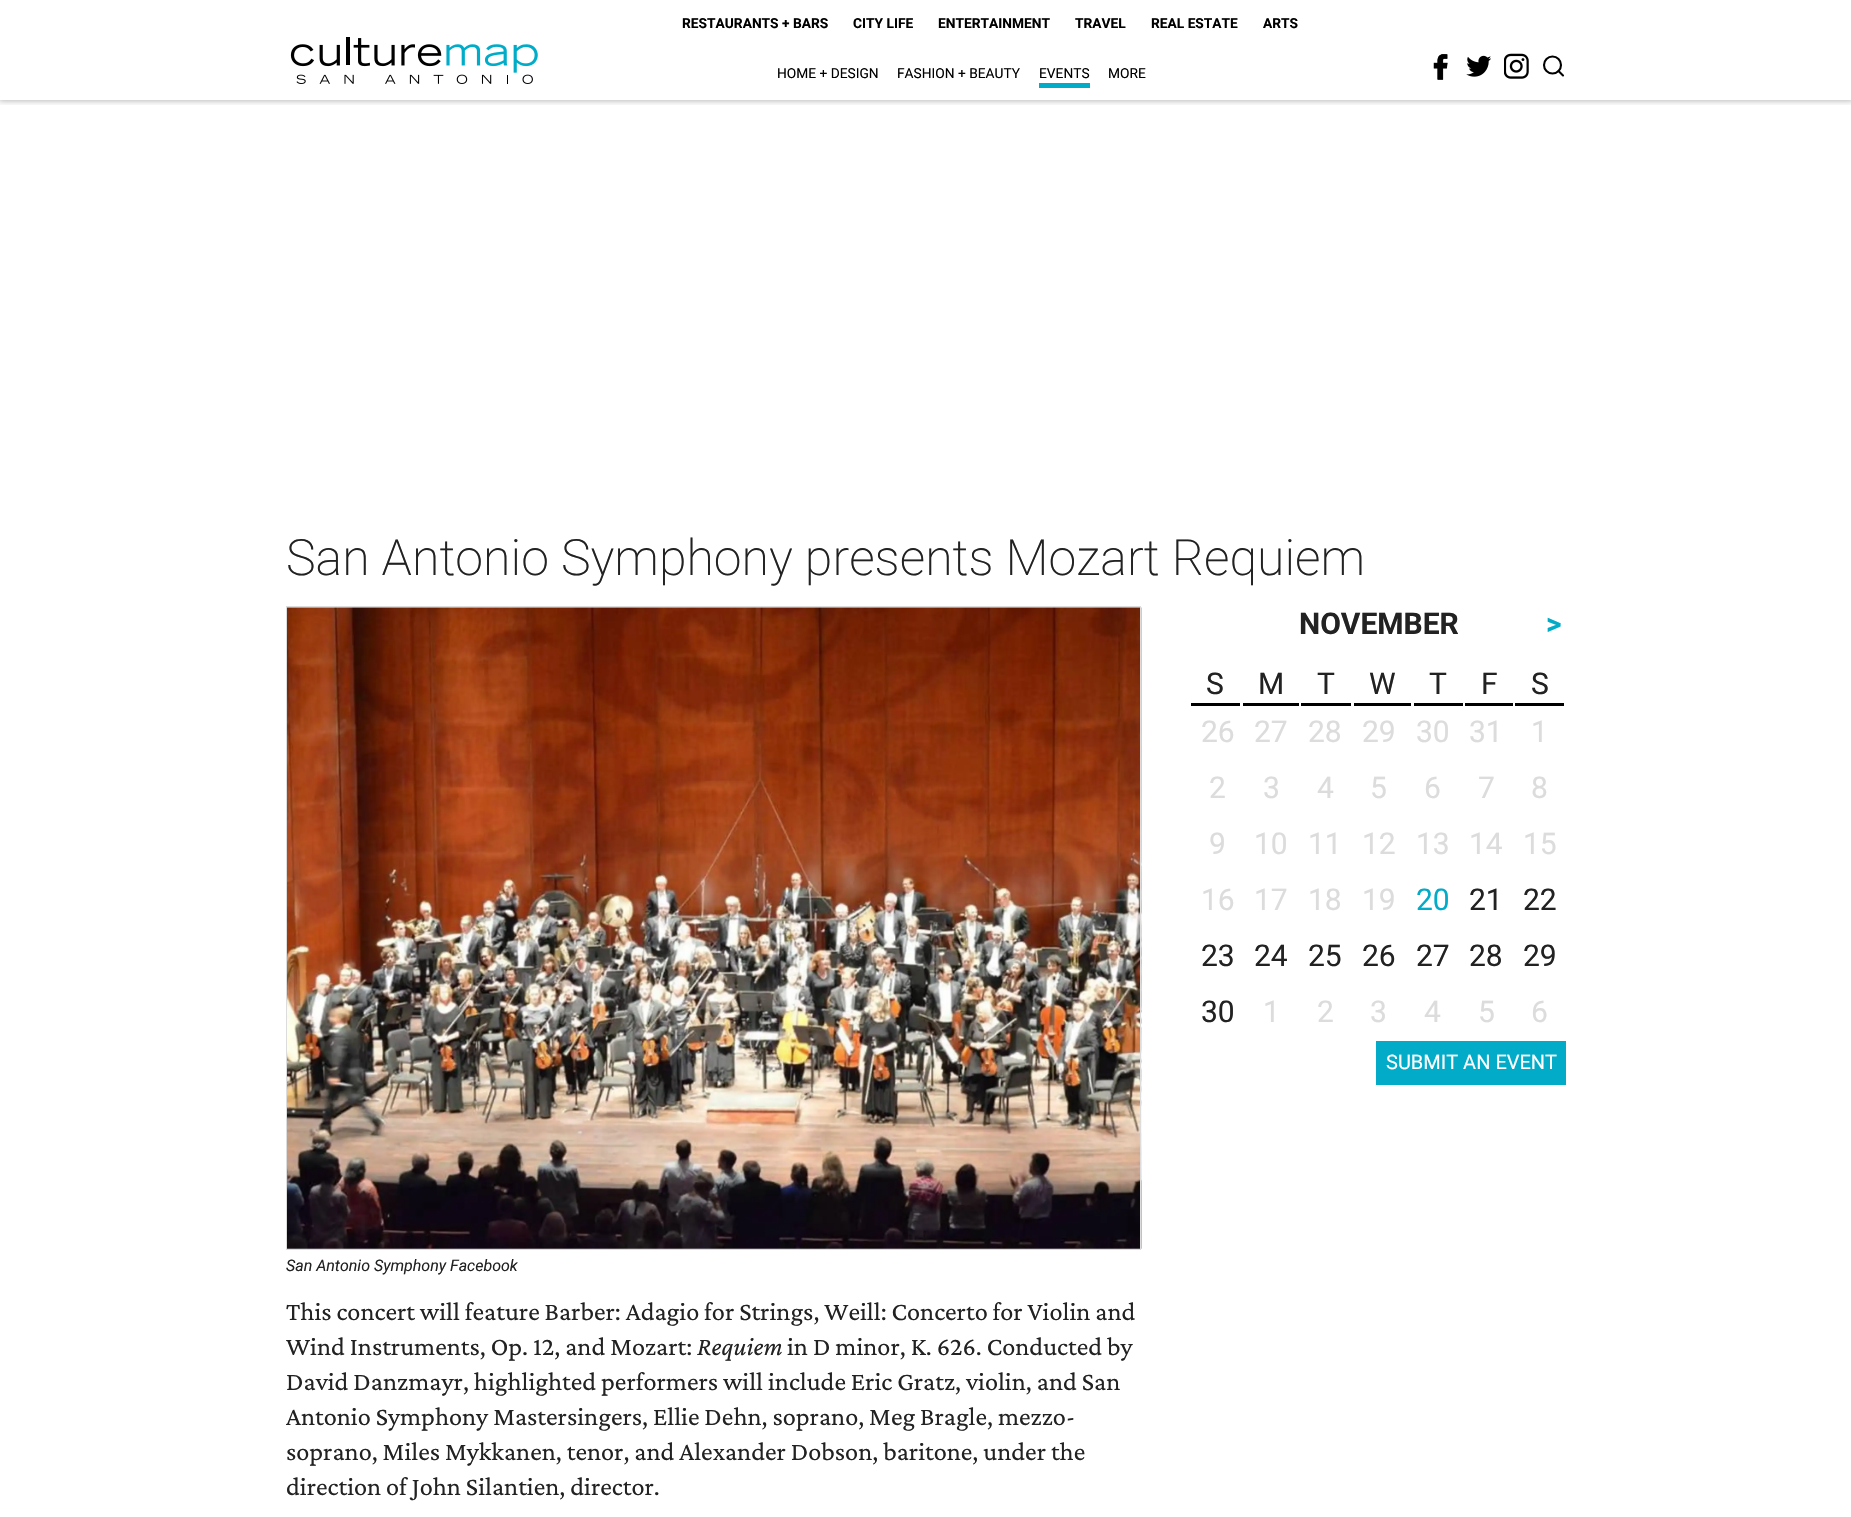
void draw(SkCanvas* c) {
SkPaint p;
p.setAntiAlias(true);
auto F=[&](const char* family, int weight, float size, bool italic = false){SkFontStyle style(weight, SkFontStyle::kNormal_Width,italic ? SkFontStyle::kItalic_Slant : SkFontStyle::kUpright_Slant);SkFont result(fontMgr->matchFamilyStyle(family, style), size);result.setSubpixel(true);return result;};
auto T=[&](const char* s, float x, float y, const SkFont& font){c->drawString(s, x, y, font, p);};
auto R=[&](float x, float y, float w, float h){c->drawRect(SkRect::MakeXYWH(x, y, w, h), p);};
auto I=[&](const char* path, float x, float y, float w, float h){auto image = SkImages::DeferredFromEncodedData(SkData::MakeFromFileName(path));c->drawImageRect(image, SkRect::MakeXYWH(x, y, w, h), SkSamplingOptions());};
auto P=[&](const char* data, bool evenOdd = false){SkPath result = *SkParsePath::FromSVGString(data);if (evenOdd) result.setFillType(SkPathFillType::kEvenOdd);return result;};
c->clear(0xffffffff);
c->save();
c->clipRect(SkRect::MakeXYWH(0,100,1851,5));
p.setColor(0x47000000);
p.setMaskFilter(SkMaskFilter::MakeBlur(kNormal_SkBlurStyle, 3));
c->drawRect(SkRect::MakeXYWH(-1,-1,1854,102),p);
p.setMaskFilter(nullptr);
c->restore();
I("1.png",290,37,248,47);
auto f1 = F("Roboto",700,13.75);
p.setColor(0xff000000);
T("RESTAURANTS + BARS",682,28,f1);
T("CITY LIFE",853,28,f1);
T("ENTERTAINMENT",938,28,f1);
T("TRAVEL",1075,28,f1);
T("REAL ESTATE",1151,28,f1);
T("ARTS",1263,28,f1);
auto f2 = F("Roboto",400,13.75);
T("HOME + DESIGN",777,78,f2);
T("FASHION + BEAUTY",897,78,f2);
T("EVENTS",1039,78,f2);
p.setColor(0xff02abc8);
R(1039,83,51,5);
p.setColor(0xff000000);
T("MORE",1108,78,f2);
I("2.png",1433,54,15,26);
I("3.png",1466,55,25,22);
I("4.png",1504,53,25,26);
p.setStroke(true);
p.setStrokeWidth(2.1);
c->drawCircle(1552.5,65,8.5,p);
p.setStrokeCap(SkPaint::kRound_Cap);
p.setStrokeJoin(SkPaint::kRound_Join);
c->drawPath(P("M1563 75.5l-4.5-4.5"),p);
auto f3 = F("Roboto",200,50);
p.setStroke(false);
p.setColor(0xff222222);
T("San Antonio Symphony presents Mozart Requiem",286,575,f3);
auto f4 = F("Roboto",700,30);
T("NOVEMBER",1299,634,f4);
p.setColor(0xff02abc8);
T(">",1546,634,f4);
p.setColor(0xff000000);
R(1191,703,49,3);
auto f5 = F("Roboto",400,30);
p.setColor(0xff222222);
T("S",1206,694,f5);
p.setColor(0xff000000);
R(1243,703,56,3);
p.setColor(0xff222222);
T("M",1258,694,f5);
p.setColor(0xff000000);
R(1301,703,50,3);
p.setColor(0xff222222);
T("T",1317,694,f5);
p.setColor(0xff000000);
R(1354,703,57,3);
p.setColor(0xff222222);
T("W",1369,694,f5);
p.setColor(0xff000000);
R(1414,703,49,3);
p.setColor(0xff222222);
T("T",1429,694,f5);
p.setColor(0xff000000);
R(1465,703,48,3);
p.setColor(0xff222222);
T("F",1481,694,f5);
p.setColor(0xff000000);
R(1515,703,49,3);
p.setColor(0xff222222);
T("S",1531,694,f5);
p.setColor(0xffdcdcdc);
T("26",1201,742,f5);
T("27",1254,742,f5);
T("28",1308,742,f5);
T("29",1362,742,f5);
T("30",1416,742,f5);
T("31",1469,742,f5);
T("1",1531,742,f5);
T("2",1209,798,f5);
T("3",1263,798,f5);
T("4",1317,798,f5);
T("5",1370,798,f5);
T("6",1424,798,f5);
T("7",1478,798,f5);
T("8",1531,798,f5);
T("9",1209,854,f5);
T("10",1254,854,f5);
T("11",1308,854,f5);
T("12",1362,854,f5);
T("13",1416,854,f5);
T("14",1469,854,f5);
T("15",1523,854,f5);
T("16",1201,910,f5);
T("17",1254,910,f5);
T("18",1308,910,f5);
T("19",1362,910,f5);
p.setColor(0xff02abc8);
T("20",1416,910,f5);
p.setColor(0xff222222);
T("21",1469,910,f5);
T("22",1523,910,f5);
T("23",1201,966,f5);
T("24",1254,966,f5);
T("25",1308,966,f5);
T("26",1362,966,f5);
T("27",1416,966,f5);
T("28",1469,966,f5);
T("29",1523,966,f5);
T("30",1201,1022,f5);
p.setColor(0xffdcdcdc);
T("1",1263,1022,f5);
T("2",1317,1022,f5);
T("3",1370,1022,f5);
T("4",1424,1022,f5);
T("5",1478,1022,f5);
T("6",1531,1022,f5);
p.setColor(0xff02abc8);
R(1376,1041,190,44);
auto f6 = F("Roboto",400,20);
p.setColor(0xffffffff);
T("SUBMIT AN EVENT",1386,1069,f6);
I("5.png",287,607,855,642);
p.setStroke(true);
p.setStrokeWidth(1);
p.setStrokeCap(SkPaint::kButt_Cap);
p.setStrokeJoin(SkPaint::kMiter_Join);
p.setColor(0xffdcdcdc);
c->drawRect(SkRect::MakeXYWH(286.5,606.5,854,643),p);
auto f7 = F("Roboto",400,16,true);
p.setStroke(false);
p.setColor(0xff222222);
T("San Antonio Symphony Facebook",286,1271,f7);
auto f8 = F("Crimson Pro",400,26.25);
T("This concert will feature Barber: Adagio for Strings, Weill: Concerto for Violin and",286,1320,f8);
T("Wind Instruments, Op. 12, and Mozart:",286,1355,f8);
auto f9 = F("Crimson Pro",400,26.25,true);
T("Requiem",697,1355,f9);
T("in D minor, K. 626. Conducted by",787,1355,f8);
T("David Danzmayr, highlighted performers will include Eric Gratz, violin, and San",286,1390,f8);
T("Antonio Symphony Mastersingers, Ellie Dehn, soprano, Meg Bragle, mezzo-",286,1425,f8);
T("soprano, Miles Mykkanen, tenor, and Alexander Dobson, baritone, under the",286,1460,f8);
T("direction of John Silantien, director.",286,1495,f8);
}
